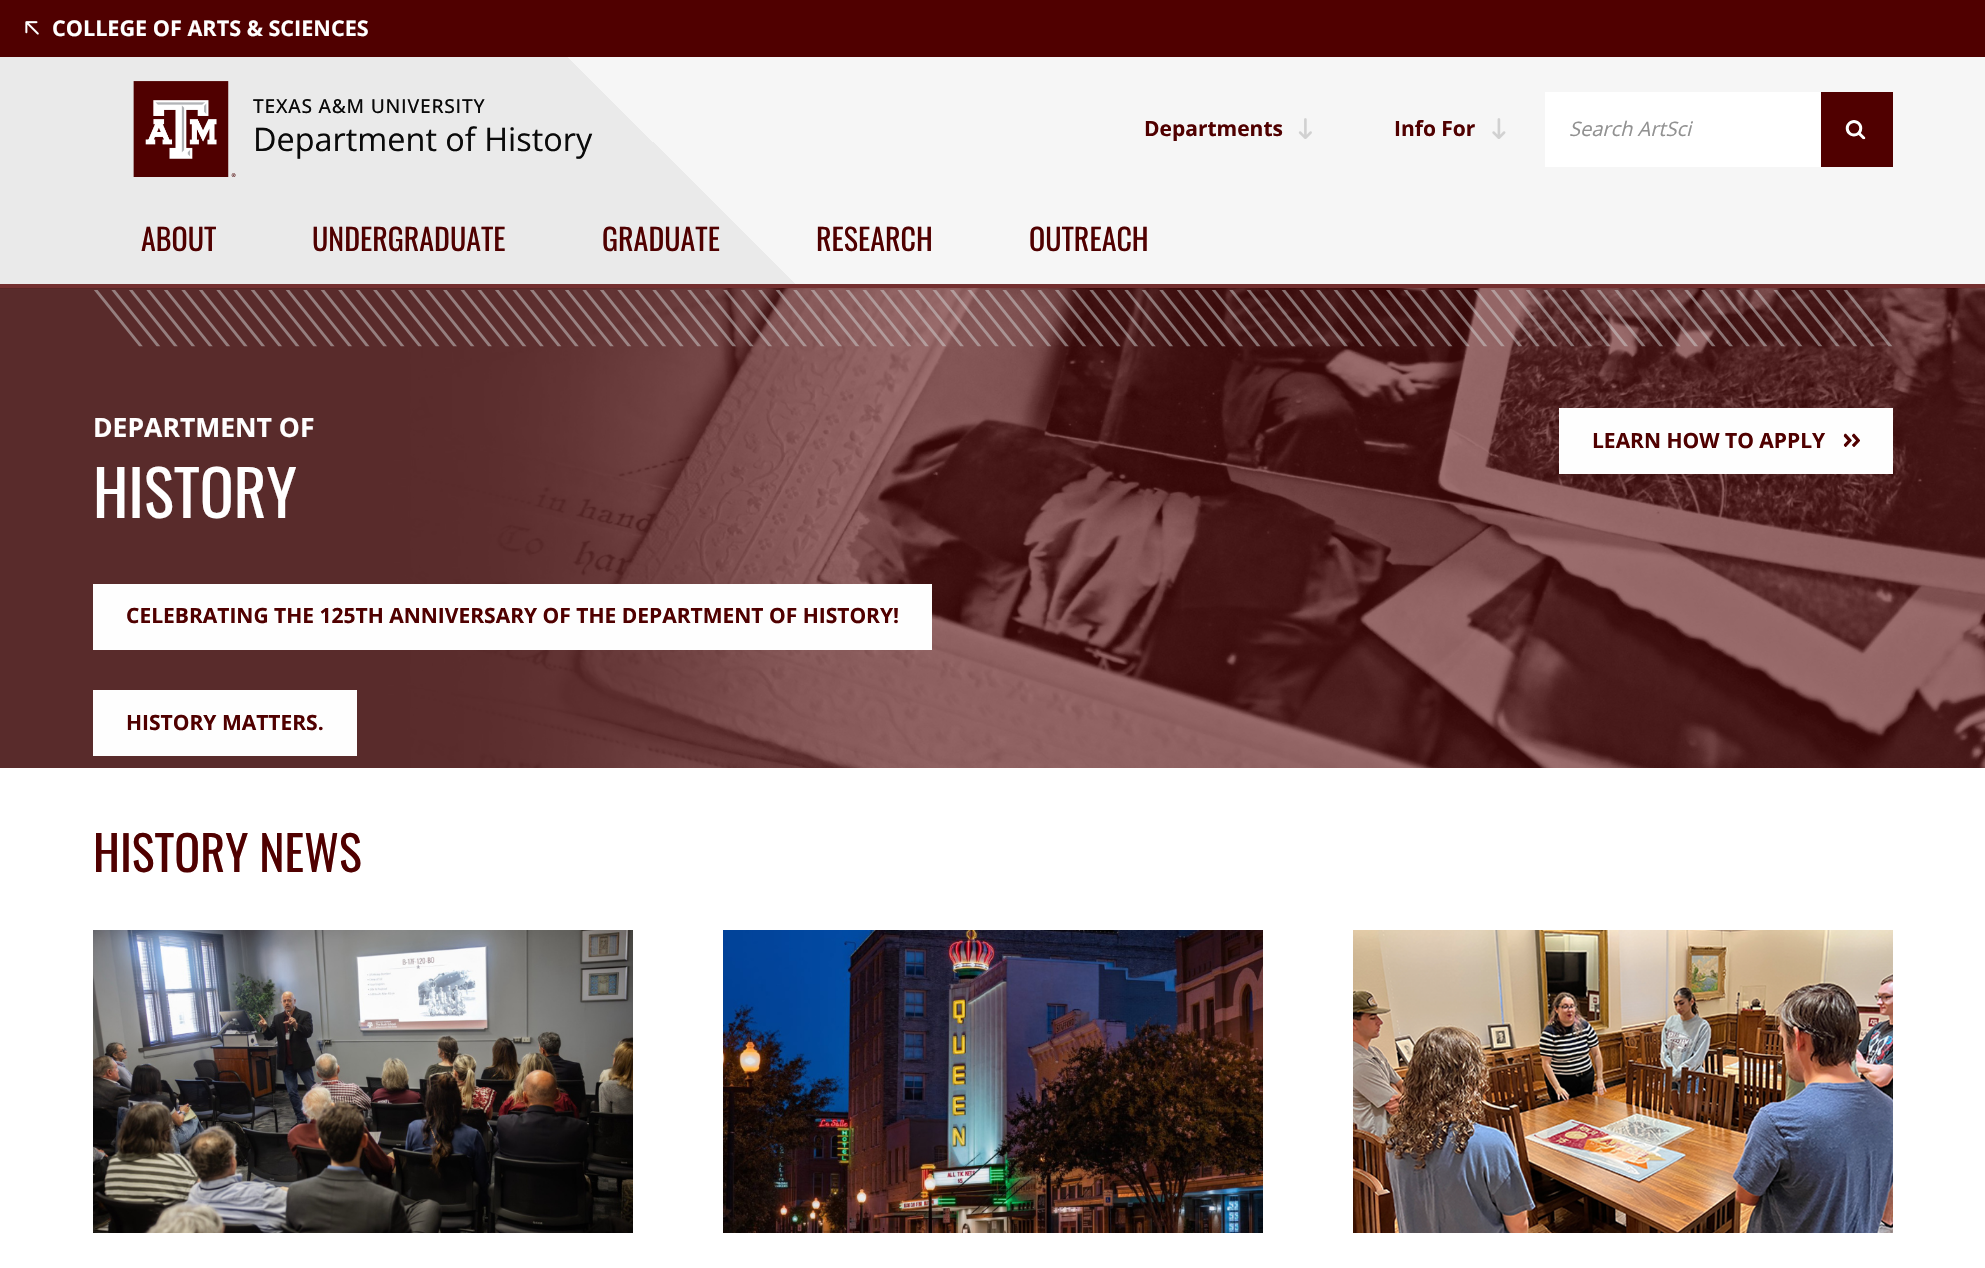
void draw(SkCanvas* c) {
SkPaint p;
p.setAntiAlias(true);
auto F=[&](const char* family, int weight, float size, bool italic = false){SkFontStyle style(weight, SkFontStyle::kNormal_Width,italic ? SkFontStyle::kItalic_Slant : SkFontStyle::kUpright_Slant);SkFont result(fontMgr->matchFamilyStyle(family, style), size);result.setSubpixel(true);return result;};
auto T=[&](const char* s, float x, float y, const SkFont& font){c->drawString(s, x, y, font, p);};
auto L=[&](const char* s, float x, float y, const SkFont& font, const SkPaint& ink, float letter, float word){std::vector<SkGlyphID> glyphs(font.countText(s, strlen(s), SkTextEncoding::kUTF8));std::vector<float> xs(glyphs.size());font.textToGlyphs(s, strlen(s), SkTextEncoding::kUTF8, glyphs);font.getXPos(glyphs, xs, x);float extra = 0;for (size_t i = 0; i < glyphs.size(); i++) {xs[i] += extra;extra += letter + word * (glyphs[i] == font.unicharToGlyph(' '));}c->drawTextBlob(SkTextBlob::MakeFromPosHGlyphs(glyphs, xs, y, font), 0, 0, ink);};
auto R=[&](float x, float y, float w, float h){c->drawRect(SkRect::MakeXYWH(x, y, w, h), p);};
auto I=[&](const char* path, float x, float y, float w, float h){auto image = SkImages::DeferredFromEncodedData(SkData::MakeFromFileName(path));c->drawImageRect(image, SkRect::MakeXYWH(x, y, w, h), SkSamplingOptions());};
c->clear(0xffffffff);
p.setColor(0xff590d0d);
R(0,289,1985,479);
{
const SkColor colors[] = {0xffeaeaea,0xfff6f6f6,0xfff6f6f6};
const float stops[] = {.35,.35,1};
const SkPoint ends[] = {{426,709}, {1560,-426}};
p.setShader(SkGradientShader::MakeLinear(ends, colors, stops, 3, SkTileMode::kClamp));
p.setAlpha(255);
}
R(0,57,1985,227);
p.setShader(nullptr);
p.setColor(0xff732f2f);
R(0,284,1985,4);
p.setColor(0xff520202);
R(0,288,1985,1);
p.setColor(0xff500000);
R(0,0,1985,57);
I("1.png",25,21,14,14);
auto f1 = F("Open Sans",700,21.6);
p.setColor(0xffffffff);
T("COLLEGE OF ARTS & SCIENCES",52,36,f1);
I("2.png",133,81,103,96);
auto f2 = F("Open Sans",500,19.25);
p.setColor(0xff0a0a0a);
L("TEXAS A&M UNIVERSITY",253,113,f2,p,.75,0);
auto f3 = F("Open Sans",400,32.4);
T("Department of History",253,151,f3);
auto f4 = F("Open Sans",700,21);
p.setColor(0xff500000);
T("Departments",1144,136,f4);
I("3.png",1298,118,14,21);
T("Info For",1394,136,f4);
I("4.png",1492,118,14,21);
p.setColor(0xffffffff);
R(1545,92,276,75);
auto f5 = F("Open Sans",400,20,true);
p.setColor(0xff919191);
T("Search ArtSci",1569,136,f5);
p.setColor(0xff500000);
R(1821,92,72,75);
I("5.png",1845,120,21,20);
auto f6 = F("Oswald",400,30);
T("ABOUT",141,251,f6);
T("UNDERGRADUATE",312,251,f6);
T("GRADUATE",602,251,f6);
T("RESEARCH",816,251,f6);
T("OUTREACH",1029,251,f6);
I("6.png",0,288,1985,480);
I("7.png",94,290,1799,57);
auto f7 = F("Open Sans",700,26.5);
p.setColor(0xffffffff);
T("DEPARTMENT OF",93,437,f7);
auto f8 = F("Oswald",400,63);
T("HISTORY",93,518,f8);
p.setColor(0xfffefefe);
R(93,584,839,66);
p.setColor(0xff500000);
T("CELEBRATING THE 125TH ANNIVERSARY OF THE DEPARTMENT OF HISTORY!",126,623,f4);
p.setColor(0xfffefefe);
R(93,690,264,66);
p.setColor(0xff500000);
T("HISTORY MATTERS.",126,730,f4);
p.setColor(0xfffefefe);
R(1559,408,334,66);
p.setColor(0xff500000);
T("LEARN HOW TO APPLY",1592,448,f4);
I("8.png",1843,433,17,14);
auto f9 = F("Oswald",400,48);
T("HISTORY NEWS",93,872,f9);
I("9.png",93,930,540,303);
I("10.png",723,930,540,303);
I("11.png",1353,930,540,303);
}
